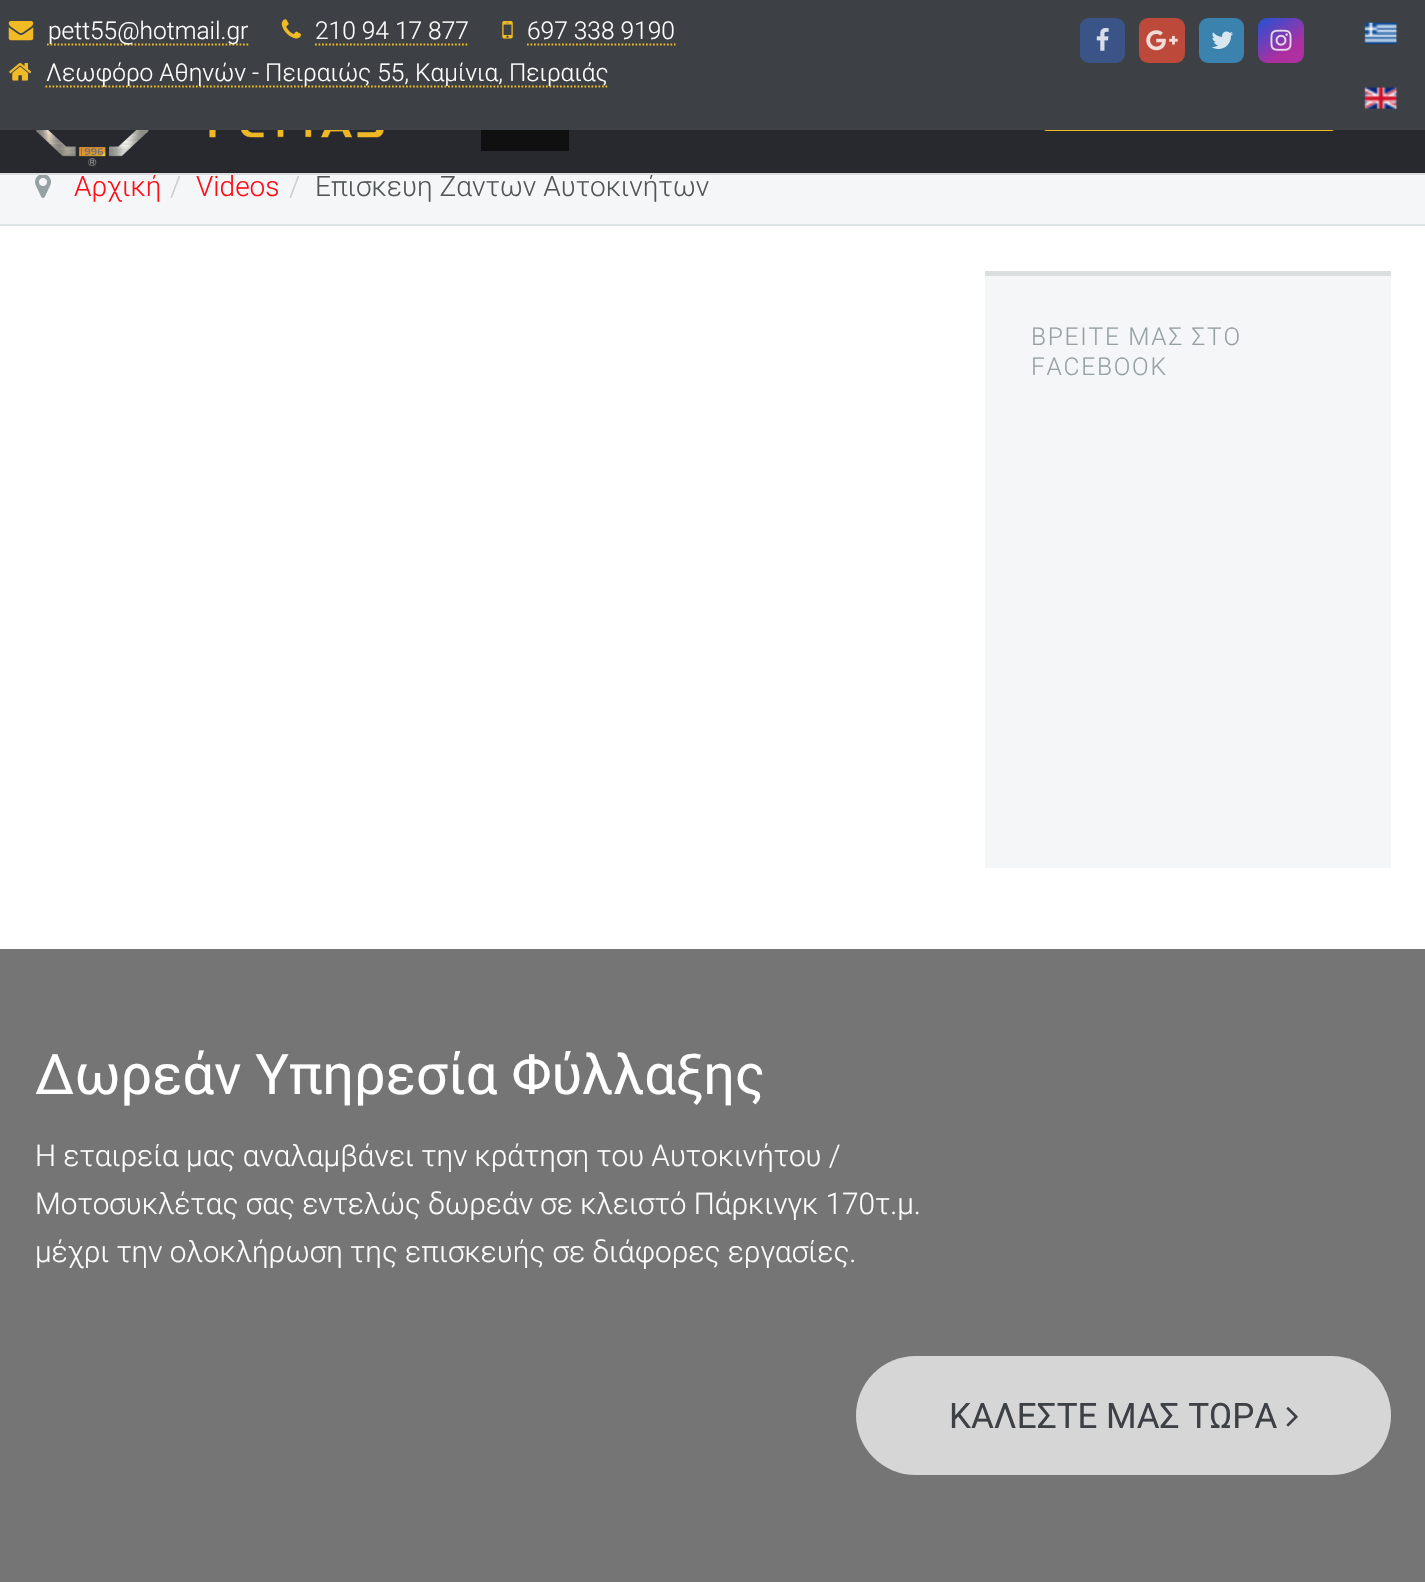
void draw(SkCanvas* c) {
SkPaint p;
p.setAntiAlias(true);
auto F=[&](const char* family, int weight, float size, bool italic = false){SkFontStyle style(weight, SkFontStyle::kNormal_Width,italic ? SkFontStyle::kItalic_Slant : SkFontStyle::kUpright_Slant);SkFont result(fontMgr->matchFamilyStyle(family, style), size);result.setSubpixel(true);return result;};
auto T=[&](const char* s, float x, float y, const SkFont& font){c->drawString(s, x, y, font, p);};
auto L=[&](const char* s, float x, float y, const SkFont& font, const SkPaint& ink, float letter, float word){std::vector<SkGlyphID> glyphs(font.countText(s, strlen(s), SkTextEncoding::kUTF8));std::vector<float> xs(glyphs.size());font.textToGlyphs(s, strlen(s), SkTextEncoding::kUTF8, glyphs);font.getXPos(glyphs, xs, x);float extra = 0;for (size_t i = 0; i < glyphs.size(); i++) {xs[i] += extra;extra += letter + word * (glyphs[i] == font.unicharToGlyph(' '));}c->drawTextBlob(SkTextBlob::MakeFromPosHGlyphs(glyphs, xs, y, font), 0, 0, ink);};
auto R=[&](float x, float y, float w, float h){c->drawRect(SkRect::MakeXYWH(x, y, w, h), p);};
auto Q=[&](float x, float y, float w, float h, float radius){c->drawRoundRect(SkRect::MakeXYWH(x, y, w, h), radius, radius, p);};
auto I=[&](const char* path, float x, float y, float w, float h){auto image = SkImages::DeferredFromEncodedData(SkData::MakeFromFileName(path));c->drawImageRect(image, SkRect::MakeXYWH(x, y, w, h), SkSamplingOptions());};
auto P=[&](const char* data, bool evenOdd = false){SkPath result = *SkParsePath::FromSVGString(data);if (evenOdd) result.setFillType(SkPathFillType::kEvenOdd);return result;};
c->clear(0xffffffff);
p.setColor(0xff27292e);
R(0,130,1425,43);
p.setStroke(true);
p.setStrokeWidth(2);
p.setColor(0xfff1bb26);
c->drawRoundRect(SkRect::MakeXYWH(1044,55,290,75),3,3,p);
p.setStroke(false);
p.setColor(0xff3d4045);
R(0,0,1425,130);
I("1.png",8,21,26,20);
p.setStroke(true);
p.setStrokeWidth(1.8);
p.setColor(0xfff1bb26);
p.setPathEffect(SkDashPathEffect::Make({{1.75f,1.75f}}, 0));
c->drawPath(P("M47 44.5h201.5"),p);
p.setPathEffect(nullptr);
auto f1 = F("Roboto",300,24.5);
p.setStroke(false);
p.setColor(0xffffffff);
T("pett55@hotmail.gr",48,39,f1);
I("2.png",281,19,20,20);
T("210 94 17 877",315,39,f1);
p.setStroke(true);
p.setColor(0xfff1bb26);
p.setPathEffect(SkDashPathEffect::Make({{1.75f,1.75f}}, 0));
c->drawPath(P("M315 44.5h154"),p);
p.setPathEffect(nullptr);
I("3.png",502,21,11,18);
p.setStroke(false);
p.setColor(0xffffffff);
T("697 338 9190",527,39,f1);
p.setStroke(true);
p.setColor(0xfff1bb26);
p.setPathEffect(SkDashPathEffect::Make({{1.75f,1.75f}}, 0));
c->drawPath(P("M527 44.5h148.5"),p);
p.setPathEffect(nullptr);
I("4.png",9,63,23,18);
p.setPathEffect(SkDashPathEffect::Make({{1.75f,1.75f}}, 0));
c->drawPath(P("M45.5 86.5h563.5"),p);
p.setPathEffect(nullptr);
p.setStroke(false);
p.setColor(0xffffffff);
T("Λεωφόρο Αθηνών - Πειραιώς 55, Καμίνια, Πειραιάς",46,81,f1);
p.setColor(0xff3b5487);
Q(1080,18,45,45,9);
I("5.png",1096,28,13,23);
p.setColor(0xffbd493b);
Q(1139,18,46,45,9);
I("6.png",1146,30,32,21);
p.setColor(0xff3b82ae);
Q(1199,18,45,45,9);
I("7.png",1211,31,22,18);
{
const SkColor colors[] = {0xff334ecf,0xffad2fa0};
const float stops[] = {.1,.7};
const SkPoint ends[] = {{1263,14}, {1299,66}};
p.setShader(SkGradientShader::MakeLinear(ends, colors, stops, 2, SkTileMode::kClamp));
p.setAlpha(255);
}
Q(1258,18,46,45,9);
I("8.png",1270,29,22,22);
I("9.png",1364,22,34,22);
I("10.png",1364,86,34,23);
p.setShader(nullptr);
p.setColor(0xfff4f6f7);
R(0,175,1425,49);
auto f2 = F("Roboto",300,28);
p.setColor(0xffff0d18);
T("Αρχική",74,196,f2);
p.setColor(0xff505656);
T("Επισκευη Zαντων Αυτοκινήτων",315,196,f2);
p.setColor(0xffdadedf);
R(0,173,1425,2);
I("11.png",35,130,349,37);
p.setColor(0xff101010);
R(481,130,88,21);
p.setColor(0xffdde4e6);
R(0,224,1425,2);
I("12.png",35,175,16,23);
p.setColor(0xffcccccc);
T("/",170,196,f2);
p.setColor(0xffff0d18);
T("Videos",196,196,f2);
p.setColor(0xffcccccc);
T("/",289,196,f2);
p.setColor(0xfff4f6f7);
R(985,276,406,592);
p.setColor(0xffdadedf);
R(985,271,406,5);
p.setColor(0xff96a1a3);
L("ΒΡΕΙΤΕ ΜΑΣ ΣΤΟ",1031,345,f1,p,1.75,0);
L("FACEBOOK",1031,375,f1,p,1.75,0);
p.setColor(0xff757575);
R(0,949,1425,633);
auto f3 = F("Roboto",400,56);
p.setColor(0xffffffff);
T("Δωρεάν Υπηρεσία Φύλλαξης",35,1094,f3);
auto f4 = F("Roboto",300,29.75);
T("Η εταιρεία μας αναλαμβάνει την κράτηση του Αυτοκινήτου /",35,1166,f4);
T("Μοτοσυκλέτας σας εντελώς δωρεάν σε κλειστό Πάρκινγκ 170τ.μ.",35,1214,f4);
T("μέχρι την ολοκλήρωση της επισκευής σε διάφορες εργασίες.",35,1262,f4);
p.setColor(0xffd6d6d6);
Q(856,1356,535,119,59.5);
auto f5 = F("Roboto",400,35);
p.setColor(0xff3d4045);
T("ΚΑΛΕΣΤΕ ΜΑΣ ΤΩΡΑ",949,1428,f5);
I("13.png",1286,1407,12,20);
}
